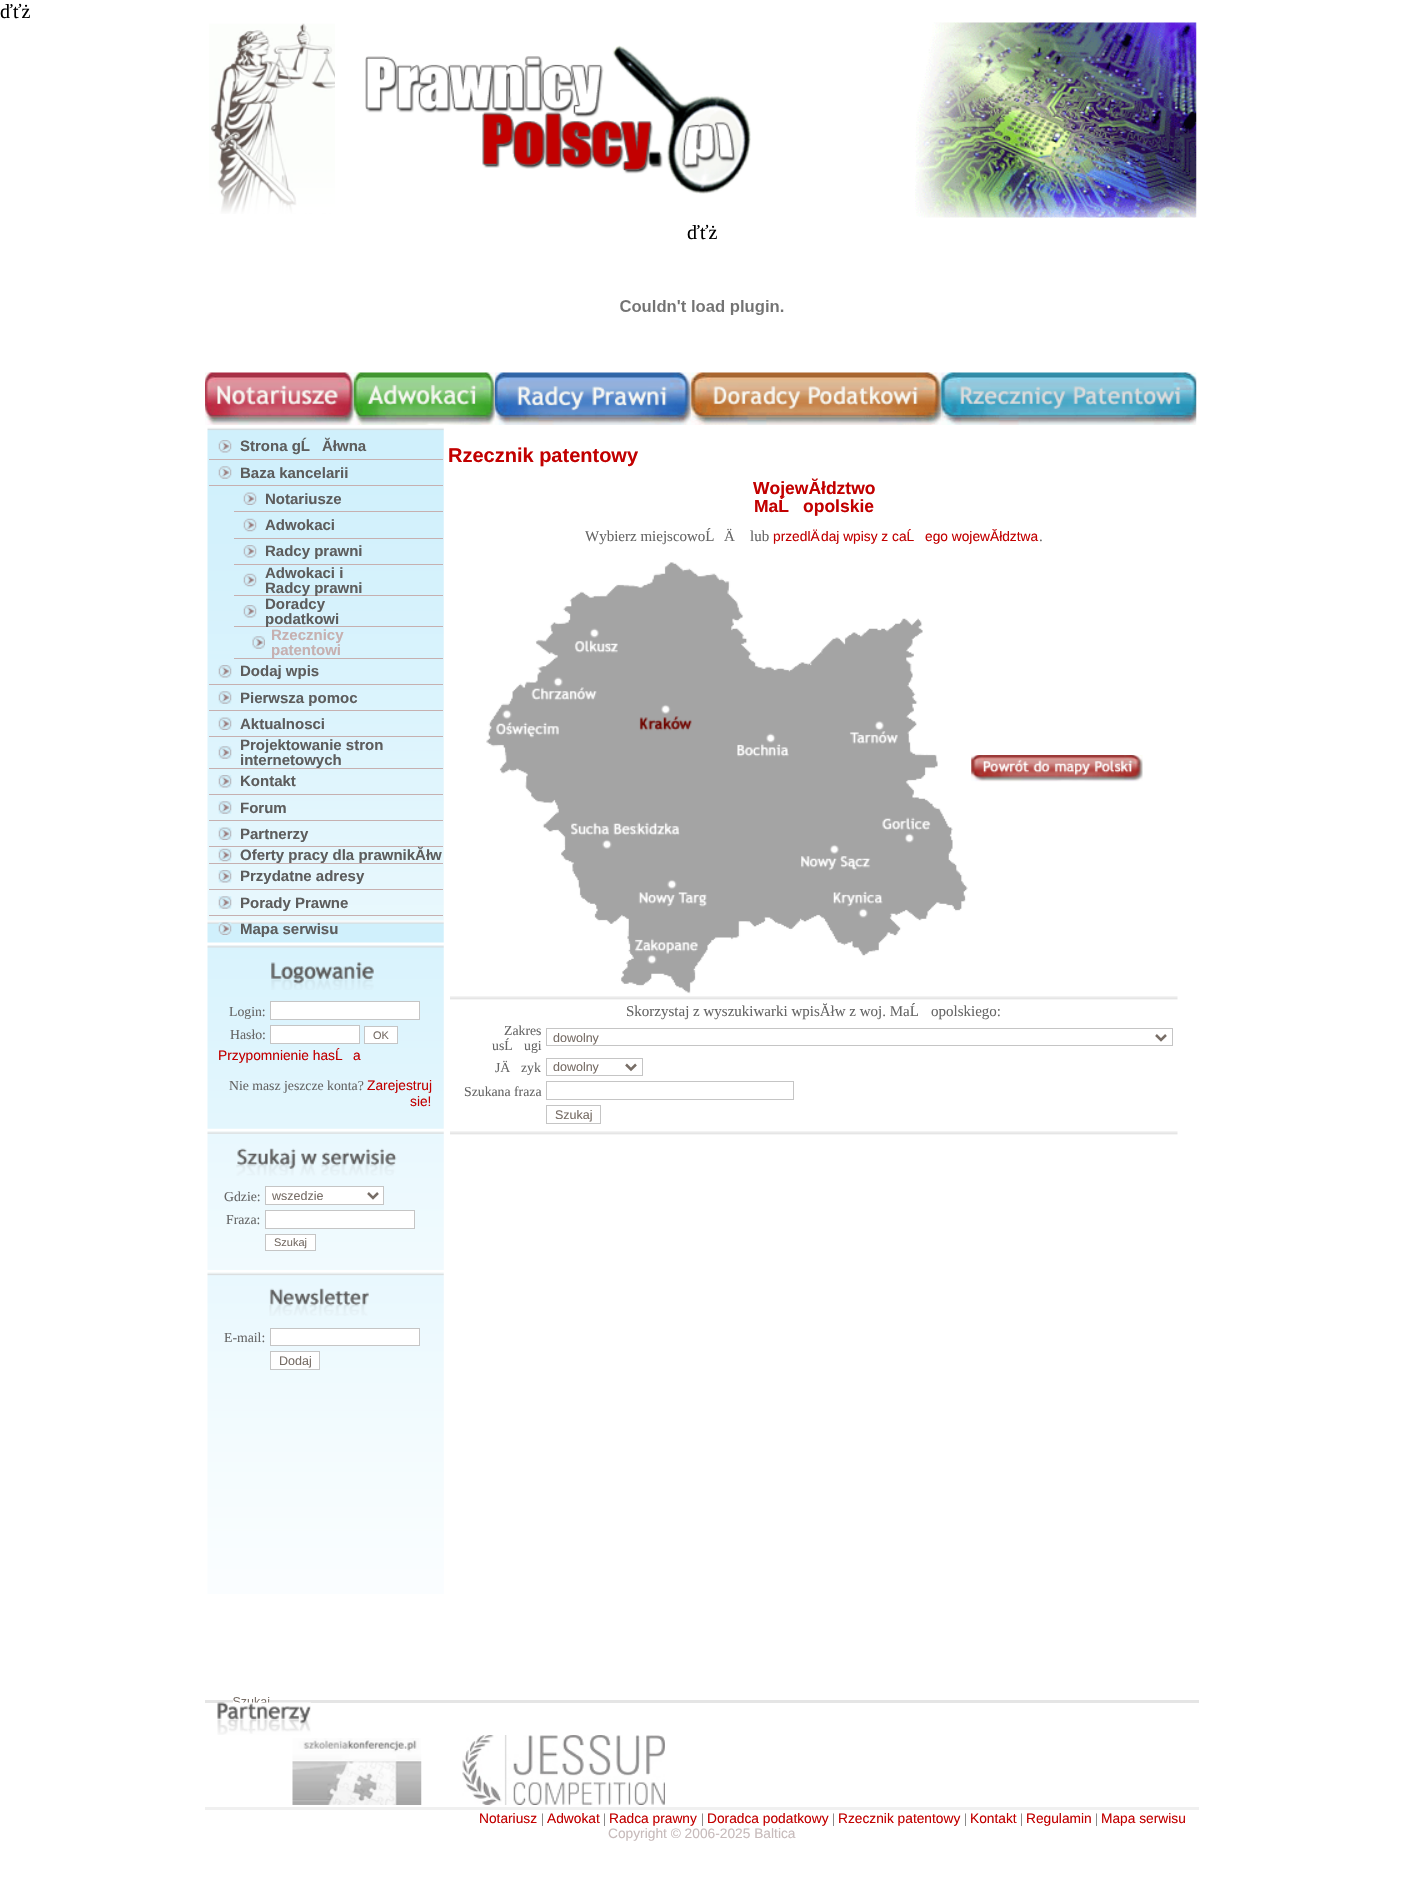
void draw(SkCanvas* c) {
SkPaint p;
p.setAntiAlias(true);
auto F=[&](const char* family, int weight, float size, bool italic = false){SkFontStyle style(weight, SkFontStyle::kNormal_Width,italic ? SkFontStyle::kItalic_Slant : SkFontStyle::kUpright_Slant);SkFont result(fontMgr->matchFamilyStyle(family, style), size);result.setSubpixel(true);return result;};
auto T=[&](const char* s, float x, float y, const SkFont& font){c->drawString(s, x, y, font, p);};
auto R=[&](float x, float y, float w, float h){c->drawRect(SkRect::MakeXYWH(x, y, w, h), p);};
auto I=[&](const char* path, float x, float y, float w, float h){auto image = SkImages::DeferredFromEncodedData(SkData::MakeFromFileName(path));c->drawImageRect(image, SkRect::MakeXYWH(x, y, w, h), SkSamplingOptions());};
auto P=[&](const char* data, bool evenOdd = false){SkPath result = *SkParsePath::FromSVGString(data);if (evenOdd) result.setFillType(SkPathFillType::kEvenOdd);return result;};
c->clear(0xffffffff);
auto f1 = F("Liberation Serif",400,20);
p.setColor(0xff000000);
T("ďťż",0,18,f1);
I("1.png",209,23,126,191);
I("2.png",915,22,282,196);
I("3.png",365,45,386,149);
T("ďťż",687,239,f1);
I("4.png",620,300,164,15);
I("5.png",205,372,149,53);
I("6.png",353,372,142,53);
I("7.png",495,372,197,53);
I("8.png",691,372,251,53);
I("9.png",941,372,256,53);
I("10.png",207,427,237,516);
I("11.png",218,440,14,13);
p.setColor(0xffc6b0b0);
R(209,459,234,1);
auto f2 = F("Liberation Sans",700,15);
p.setColor(0xff5d5d5d);
T("Strona gĹ",240,451,f2);
T("Ăłwna",322,451,f2);
I("12.png",218,466,14,13);
p.setColor(0xffc6b0b0);
R(209,485,234,1);
p.setColor(0xff5d5d5d);
T("Baza kancelarii",240,478,f2);
I("13.png",243,492,14,13);
p.setColor(0xffc6b0b0);
R(234,511,209,1);
p.setColor(0xff5d5d5d);
T("Notariusze",265,504,f2);
I("14.png",243,518,14,14);
p.setColor(0xffc6b0b0);
R(234,538,209,1);
p.setColor(0xff5d5d5d);
T("Adwokaci",265,530,f2);
I("15.png",243,545,14,13);
p.setColor(0xffc6b0b0);
R(234,564,209,1);
p.setColor(0xff5d5d5d);
T("Radcy prawni",265,556,f2);
I("16.png",243,573,14,14);
p.setColor(0xffc6b0b0);
R(234,595,209,1);
p.setColor(0xff5d5d5d);
T("Adwokaci i",265,578,f2);
T("Radcy prawni",265,593,f2);
I("17.png",243,605,14,13);
p.setColor(0xffc6b0b0);
R(234,626,209,1);
p.setColor(0xff5d5d5d);
T("Doradcy",265,609,f2);
T("podatkowi",265,624,f2);
I("18.png",252,636,13,13);
p.setColor(0xffc6b0b0);
R(234,658,209,1);
T("Rzecznicy",271,640,f2);
T("patentowi",271,655,f2);
I("19.png",218,665,14,13);
R(209,684,234,1);
p.setColor(0xff5d5d5d);
T("Dodaj wpis",240,676,f2);
I("20.png",218,691,14,13);
p.setColor(0xffc6b0b0);
R(209,710,234,1);
p.setColor(0xff5d5d5d);
T("Pierwsza pomoc",240,703,f2);
I("21.png",218,717,14,13);
p.setColor(0xffc6b0b0);
R(209,736,234,1);
p.setColor(0xff5d5d5d);
T("Aktualnosci",240,729,f2);
I("22.png",218,746,14,13);
p.setColor(0xffc6b0b0);
R(209,768,234,1);
p.setColor(0xff5d5d5d);
T("Projektowanie stron",240,750,f2);
T("internetowych",240,765,f2);
I("23.png",218,775,14,13);
p.setColor(0xffc6b0b0);
R(209,794,234,1);
p.setColor(0xff5d5d5d);
T("Kontakt",240,786,f2);
I("24.png",218,801,14,13);
p.setColor(0xffc6b0b0);
R(209,820,234,1);
p.setColor(0xff5d5d5d);
T("Forum",240,813,f2);
I("25.png",218,827,14,13);
p.setColor(0xffc6b0b0);
R(209,846,234,1);
p.setColor(0xff5d5d5d);
T("Partnerzy",240,839,f2);
I("26.png",218,848,14,14);
p.setColor(0xffc6b0b0);
R(209,863,234,1);
p.setColor(0xff5d5d5d);
T("Oferty pracy dla prawnikĂłw",240,860,f2);
I("27.png",218,870,14,13);
p.setColor(0xffc6b0b0);
R(209,889,234,1);
p.setColor(0xff5d5d5d);
T("Przydatne adresy",240,881,f2);
I("28.png",218,896,14,13);
p.setColor(0xffc6b0b0);
R(209,915,234,1);
p.setColor(0xff5d5d5d);
T("Porady Prawne",240,908,f2);
I("29.png",218,922,14,13);
T("Mapa serwisu",240,934,f2);
I("30.png",207,945,237,184);
I("31.png",271,962,103,28);
auto f3 = F("Liberation Serif",400,13.75);
p.setColor(0xff666666);
T("Login:",229,1016,f3);
p.setColor(0xffffffff);
c->drawRect(SkRect::MakeXYWH(270.5,1001.5,149,18),p);
p.setStroke(true);
p.setStrokeWidth(1);
p.setColor(0xffc5c5c5);
c->drawRect(SkRect::MakeXYWH(270.5,1001.5,149,18),p);
p.setStroke(false);
p.setColor(0xff666666);
T("Hasło:",230,1039,f3);
p.setColor(0xffffffff);
c->drawRect(SkRect::MakeXYWH(270.5,1025.5,89,18),p);
p.setStroke(true);
p.setColor(0xffc5c5c5);
c->drawRect(SkRect::MakeXYWH(270.5,1025.5,89,18),p);
p.setStroke(false);
p.setColor(0xffffffff);
c->drawRect(SkRect::MakeXYWH(364.5,1026.5,33,17),p);
p.setStroke(true);
p.setColor(0xffc5c5c5);
c->drawRect(SkRect::MakeXYWH(364.5,1026.5,33,17),p);
auto f4 = F("Liberation Sans",400,11);
p.setStroke(false);
p.setColor(0xff776d66);
T("OK",373,1039,f4);
auto f5 = F("Liberation Sans",400,13.75);
p.setColor(0xffc20000);
T("Przypomnienie hasĹ",218,1060,f5);
T("a",353,1060,f5);
p.setColor(0xff666666);
T("Nie masz jeszcze konta?",229,1090,f3);
p.setColor(0xffc20000);
T("Zarejestruj",367,1090,f5);
T("sie!",410,1106,f5);
I("32.png",207,1131,237,139);
I("33.png",236,1148,161,28);
p.setColor(0xff666666);
T("Gdzie:",224,1201,f3);
p.setColor(0xffffffff);
c->drawRect(SkRect::MakeXYWH(265.5,1186.5,118,18),p);
p.setStroke(true);
p.setColor(0xffc5c5c5);
c->drawRect(SkRect::MakeXYWH(265.5,1186.5,118,18),p);
p.setStrokeWidth(2.5);
p.setColor(0xff776d66);
c->drawPath(P("M368 1193l5 5l5-5"),p);
auto f6 = F("Liberation Sans",400,12.5);
p.setStroke(false);
T("wszedzie",272,1200,f6);
p.setColor(0xff666666);
T("Fraza:",226,1224,f3);
p.setColor(0xffffffff);
c->drawRect(SkRect::MakeXYWH(265.5,1210.5,149,18),p);
p.setStroke(true);
p.setStrokeWidth(1);
p.setColor(0xffc5c5c5);
c->drawRect(SkRect::MakeXYWH(265.5,1210.5,149,18),p);
p.setStroke(false);
p.setColor(0xffffffff);
c->drawRect(SkRect::MakeXYWH(265.5,1234.5,50,16),p);
p.setStroke(true);
p.setColor(0xffc5c5c5);
c->drawRect(SkRect::MakeXYWH(265.5,1234.5,50,16),p);
p.setStroke(false);
p.setColor(0xff776d66);
T("Szukaj",274,1246,f4);
I("34.png",207,1272,237,322);
I("35.png",269,1288,100,28);
p.setColor(0xff666666);
T("E-mail:",224,1342,f3);
p.setColor(0xffffffff);
c->drawRect(SkRect::MakeXYWH(270.5,1328.5,149,17),p);
p.setStroke(true);
p.setColor(0xffc5c5c5);
c->drawRect(SkRect::MakeXYWH(270.5,1328.5,149,17),p);
p.setStroke(false);
p.setColor(0xffffffff);
c->drawRect(SkRect::MakeXYWH(270.5,1351.5,49,18),p);
p.setStroke(true);
p.setColor(0xffc5c5c5);
c->drawRect(SkRect::MakeXYWH(270.5,1351.5,49,18),p);
p.setStroke(false);
p.setColor(0xff776d66);
T("Dodaj",279,1365,f6);
p.setColor(0xffe5e5e5);
R(205,1700,994,3);
p.setColor(0xffffffff);
R(233,1700,37,3);
I("36.png",233,1697,37,6);
auto f7 = F("Liberation Sans",700,20);
p.setColor(0xffc20000);
T("Rzecznik patentowy",448,462,f7);
auto f8 = F("Liberation Sans",700,17.5);
T("WojewĂłdztwo",753,494,f8);
T("MaĹ",754,512,f8);
T("opolskie",803,512,f8);
auto f9 = F("Liberation Serif",400,15);
p.setColor(0xff666666);
T("Wybierz miejscowoĹ",585,541,f9);
T("Ä",724,541,f9);
T("lub",750,541,f9);
p.setColor(0xffc20000);
T("przedlÄ",773,541,f5);
T("daj wpisy z caĹ",821,541,f5);
T("ego wojewĂłdztwa",925,541,f5);
p.setColor(0xff666666);
T(".",1039,541,f9);
I("37.png",486,562,482,432);
I("38.png",971,755,172,27);
I("39.png",450,996,728,4);
T("Skorzystaj z wyszukiwarki wpisĂłw z woj. MaĹ",626,1016,f9);
T("opolskiego:",931,1016,f9);
T("Zakres",504,1035,f3);
T("usĹ",492,1050,f3);
T("ugi",524,1050,f3);
p.setStroke(true);
p.setColor(0xffc5c5c5);
c->drawRect(SkRect::MakeXYWH(546.5,1028.5,626,17),p);
p.setStrokeWidth(2.5);
p.setColor(0xff776d66);
c->drawPath(P("M1156 1035l5 5l5-5"),p);
p.setStroke(false);
T("dowolny",553,1042,f6);
p.setColor(0xff666666);
T("JÄ",495,1072,f3);
T("zyk",521,1072,f3);
p.setStroke(true);
p.setStrokeWidth(1);
p.setColor(0xffc5c5c5);
c->drawRect(SkRect::MakeXYWH(546.5,1058.5,96,17),p);
p.setStrokeWidth(2.5);
p.setColor(0xff776d66);
c->drawPath(P("M626 1064.5l5 5l5-5"),p);
p.setStroke(false);
T("dowolny",553,1071,f6);
p.setColor(0xff666666);
T("Szukana fraza",464,1096,f3);
p.setStroke(true);
p.setStrokeWidth(1);
p.setColor(0xffc5c5c5);
c->drawRect(SkRect::MakeXYWH(546.5,1081.5,247,18),p);
c->drawRect(SkRect::MakeXYWH(546.5,1105.5,54,18),p);
p.setStroke(false);
p.setColor(0xff776d66);
T("Szukaj",555,1119,f6);
I("39.png",450,1131,728,4);
I("40.png",217,1702,94,33);
I("41.png",292,1738,130,67);
I("42.png",462,1735,203,70);
p.setColor(0xfff0f0f0);
R(205,1807,994,3);
p.setColor(0xffc20000);
T("Notariusz",479,1823,f5);
p.setColor(0xff666666);
T("|",541,1823,f3);
p.setColor(0xffc20000);
T("Adwokat",547,1823,f5);
p.setColor(0xff666666);
T("|",603,1823,f3);
p.setColor(0xffc20000);
T("Radca prawny",609,1823,f5);
p.setColor(0xff666666);
T("|",701,1823,f3);
p.setColor(0xffc20000);
T("Doradca podatkowy",707,1823,f5);
p.setColor(0xff666666);
T("|",832,1823,f3);
p.setColor(0xffc20000);
T("Rzecznik patentowy",838,1823,f5);
p.setColor(0xff666666);
T("|",964,1823,f3);
p.setColor(0xffc20000);
T("Kontakt",970,1823,f5);
p.setColor(0xff666666);
T("|",1020,1823,f3);
p.setColor(0xffc20000);
T("Regulamin",1026,1823,f5);
p.setColor(0xff666666);
T("|",1095,1823,f3);
p.setColor(0xffc20000);
T("Mapa serwisu",1101,1823,f5);
p.setColor(0xffc7bbbb);
T("Copyright © 2006-2025 Baltica",608,1838,f5);
}
